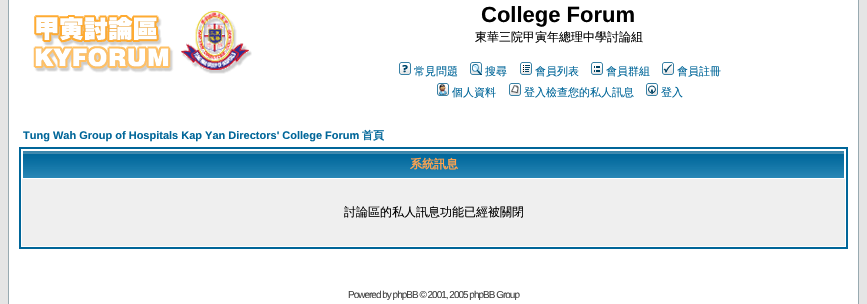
void draw(SkCanvas* c) {
SkPaint p;
p.setAntiAlias(true);
auto F=[&](const char* family, int weight, float size, bool italic = false){SkFontStyle style(weight, SkFontStyle::kNormal_Width,italic ? SkFontStyle::kItalic_Slant : SkFontStyle::kUpright_Slant);SkFont result(fontMgr->matchFamilyStyle(family, style), size);result.setSubpixel(true);return result;};
auto T=[&](const char* s, float x, float y, const SkFont& font){c->drawString(s, x, y, font, p);};
auto L=[&](const char* s, float x, float y, const SkFont& font, const SkPaint& ink, float letter, float word){std::vector<SkGlyphID> glyphs(font.countText(s, strlen(s), SkTextEncoding::kUTF8));std::vector<float> xs(glyphs.size());font.textToGlyphs(s, strlen(s), SkTextEncoding::kUTF8, glyphs);font.getXPos(glyphs, xs, x);float extra = 0;for (size_t i = 0; i < glyphs.size(); i++) {xs[i] += extra;extra += letter + word * (glyphs[i] == font.unicharToGlyph(' '));}c->drawTextBlob(SkTextBlob::MakeFromPosHGlyphs(glyphs, xs, y, font), 0, 0, ink);};
auto R=[&](float x, float y, float w, float h){c->drawRect(SkRect::MakeXYWH(x, y, w, h), p);};
auto I=[&](const char* path, float x, float y, float w, float h){auto image = SkImages::DeferredFromEncodedData(SkData::MakeFromFileName(path));c->drawImageRect(image, SkRect::MakeXYWH(x, y, w, h), SkSamplingOptions());};
c->clear(0xffe5e5e5);
p.setColor(0xffffffff);
c->drawRect(SkRect::MakeXYWH(8.5,-.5,850,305),p);
p.setStroke(true);
p.setStrokeWidth(1);
p.setColor(0xff98aab1);
c->drawRect(SkRect::MakeXYWH(8.5,-.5,850,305),p);
I("1.png",33,11,219,63);
auto f1 = F("Liberation Sans",700,22);
p.setStroke(false);
p.setColor(0xff000000);
T("College Forum",481,22,f1);
auto f2 = F("WenQuanYi Zen Hei",500,12);
T("東華三院甲寅年總理中學討論組",475,41,f2);
I("2.png",399,62,12,13);
auto f3 = F("WenQuanYi Zen Hei",500,11);
p.setColor(0xff006699);
T("常見問題",414,75,f3);
I("3.png",470,62,12,13);
T("搜尋",485,75,f3);
I("4.png",520,62,12,13);
T("會員列表",535,75,f3);
I("5.png",591,62,12,13);
T("會員群組",606,75,f3);
I("6.png",662,62,12,13);
T("會員註冊",677,75,f3);
I("7.png",437,83,12,13);
T("個人資料",452,96,f3);
I("8.png",509,83,12,13);
T("登入檢查您的私人訊息",524,96,f3);
I("9.png",646,83,12,13);
T("登入",661,96,f3);
auto f4 = F("Liberation Sans",700,11);
T("Tung Wah Group of Hospitals Kap Yan Directors' College Forum",23,139,f4);
auto f5 = F("WenQuanYi Zen Hei",700,11);
T("首頁",362,139,f5);
p.setStroke(true);
p.setStrokeWidth(2);
c->drawRect(SkRect::MakeXYWH(20,148,827,100),p);
I("10.png",23,151,821,27);
auto f6 = F("WenQuanYi Zen Hei",700,12);
p.setStroke(false);
p.setColor(0xffffa34f);
T("系統訊息",410,168,f6);
p.setColor(0xffefefef);
R(22,179,823,67);
p.setColor(0xff000000);
T("討論區的私人訊息功能已經被關閉",344,216,f2);
auto f7 = F("Liberation Sans",400,10);
p.setColor(0xff444444);
L("Powered by phpBB © 2001, 2005 phpBB Group",348,298,f7,p,-1,0);
}
